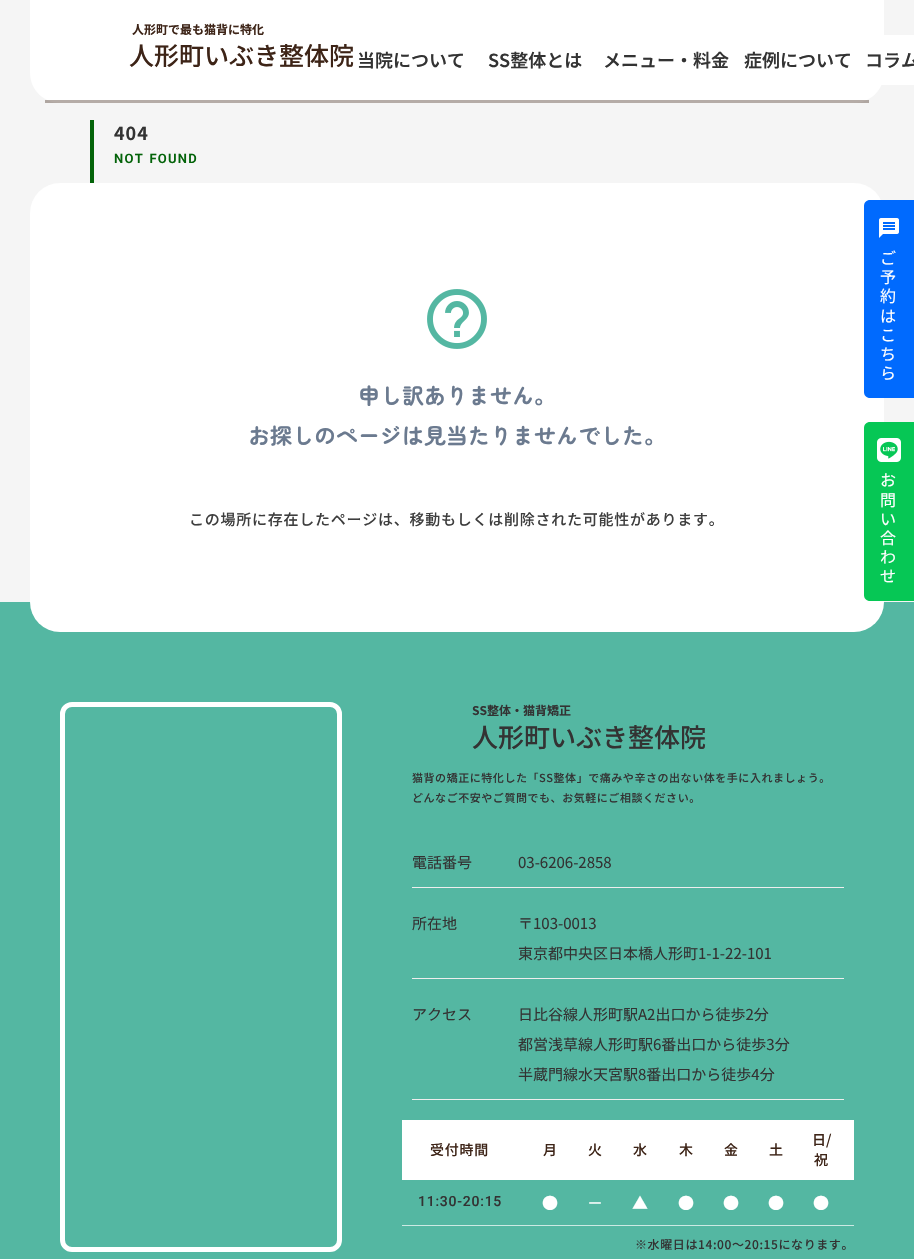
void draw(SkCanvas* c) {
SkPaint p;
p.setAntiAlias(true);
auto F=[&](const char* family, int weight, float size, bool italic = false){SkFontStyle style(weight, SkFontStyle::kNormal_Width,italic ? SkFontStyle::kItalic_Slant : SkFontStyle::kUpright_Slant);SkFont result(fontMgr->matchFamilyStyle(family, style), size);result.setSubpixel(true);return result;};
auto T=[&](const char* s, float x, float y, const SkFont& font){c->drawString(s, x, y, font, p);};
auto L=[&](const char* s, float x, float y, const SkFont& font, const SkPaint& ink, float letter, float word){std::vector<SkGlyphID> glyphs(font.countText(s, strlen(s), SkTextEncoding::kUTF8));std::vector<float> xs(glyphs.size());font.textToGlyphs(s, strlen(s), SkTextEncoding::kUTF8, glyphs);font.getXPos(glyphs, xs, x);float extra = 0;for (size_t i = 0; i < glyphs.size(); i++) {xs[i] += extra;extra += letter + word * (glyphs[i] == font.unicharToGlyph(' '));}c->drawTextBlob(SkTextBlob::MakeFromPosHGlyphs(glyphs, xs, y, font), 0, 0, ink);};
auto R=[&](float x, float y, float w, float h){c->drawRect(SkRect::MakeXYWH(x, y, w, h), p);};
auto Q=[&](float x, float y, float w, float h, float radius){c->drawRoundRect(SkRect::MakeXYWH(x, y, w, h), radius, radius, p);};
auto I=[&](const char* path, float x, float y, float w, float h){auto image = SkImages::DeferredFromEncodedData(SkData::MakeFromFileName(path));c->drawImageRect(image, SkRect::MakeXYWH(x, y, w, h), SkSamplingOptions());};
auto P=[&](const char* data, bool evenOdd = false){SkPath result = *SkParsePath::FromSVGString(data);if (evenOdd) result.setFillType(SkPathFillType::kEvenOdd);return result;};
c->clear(0xff54b7a2);
p.setColor(0xfff5f5f5);
R(0,0,914,602);
p.setColor(0xffffffff);
c->drawPath(P("M30 0h854v73c0 16.5-13.5 30-30 30h-794c-16.5 0-30-13.5-30-30z"),p);
p.setColor(0x613d2417);
R(45,100,824,3);
auto f1 = F("Noto Sans JP",700,12);
p.setColor(0xff3d2417);
T("人形町で最も猫背に特化",132,34,f1);
auto f2 = F("Noto Sans JP",500,25);
T("人形町いぶき整体院",129,65,f2);
auto f3 = F("Noto Sans JP",600,18);
p.setColor(0xff333333);
T("当院について",357,67,f3);
T("SS整体とは",488,67,f3);
T("メニュー・料金",603,67,f3);
T("症例について",744,67,f3);
p.setColor(0xffffffff);
R(881,35,33,50);
p.setColor(0xff333333);
T("コラム",865,67,f3);
p.setColor(0xff036309);
R(90,120,4,63);
auto f4 = F("Noto Sans JP",700,18);
p.setColor(0xff333333);
L("404",114,140,f4,p,1,0);
auto f5 = F("Roboto",600,13);
p.setColor(0xff036309);
L("NOT FOUND",114,163,f5,p,1.25,1);
p.setColor(0xffffffff);
Q(30,183,854,449,30);
I("1.png",427,289,60,60);
auto f6 = F("Zen Maru Gothic",700,22);
p.setColor(0xff6b7a8f);
T("申し訳ありません。",358,404,f6);
T("お探しのページは見当たりませんでした。",248,444,f6);
auto f7 = F("Noto Sans JP",500,15);
p.setColor(0xff3e3e3e);
L("この場所に存在したページは、移動もしくは削除された可能性があります。",189,525,f7,p,.75,0);
p.setColor(0xff006afe);
c->drawPath(P("M870 200h44v198h-44c-3.5 0-6-2.5-6-6v-186c0-3.5 2.5-6 6-6z"),p);
I("2.png",879,218,20,20);
auto f8 = F("Noto Sans JP",400,16);
p.setColor(0xffffffff);
L("ご",880,264,f8,p,2,0);
L("予",880,283,f8,p,2,0);
L("約",880,302,f8,p,2,0);
L("は",880,322,f8,p,2,0);
L("こ",880,341,f8,p,2,0);
L("ち",880,360,f8,p,2,0);
L("ら",880,379,f8,p,2,0);
p.setColor(0xff06c755);
c->drawPath(P("M870 422h44v179h-44c-3.5 0-6-2.5-6-6v-167c0-3.5 2.5-6 6-6z"),p);
I("3.png",877,438,24,24);
p.setColor(0xffffffff);
L("お",880,486,f8,p,2,0);
L("問",880,506,f8,p,2,0);
L("い",880,525,f8,p,2,0);
L("合",880,544,f8,p,2,0);
L("わ",880,563,f8,p,2,0);
L("せ",880,582,f8,p,2,0);
p.setStroke(true);
p.setStrokeWidth(5);
c->drawRoundRect(SkRect::MakeXYWH(62.5,704.5,277,545),9.5,9.5,p);
p.setStroke(false);
p.setColor(0xff333333);
T("SS整体・猫背矯正",472,715,f1);
auto f9 = F("Noto Sans JP",500,26);
T("人形町いぶき整体院",472,747,f9);
auto f10 = F("Noto Sans JP",500,11);
L("猫背の矯正に特化した「SS整体」で痛みや辛さの出ない体を手に入れましょう。",412,782,f10,p,.55,0);
L("どんなご不安やご質問でも、お気軽にご相談ください。",412,802,f10,p,.55,0);
p.setColor(0xffeeeeee);
R(412,887,432,1);
auto f11 = F("Noto Sans JP",400,15);
p.setColor(0xff333333);
T("電話番号",412,868,f11);
T("03-6206-2858",518,868,f11);
p.setColor(0xffeeeeee);
R(412,978,432,1);
p.setColor(0xff333333);
T("所在地",412,929,f11);
T("〒103-0013",518,929,f11);
T("東京都中央区日本橋人形町1-1-22-101",518,959,f11);
p.setColor(0xffeeeeee);
R(412,1099,432,1);
p.setColor(0xff333333);
T("アクセス",412,1020,f11);
T("日比谷線人形町駅A2出口から徒歩2分",518,1020,f11);
T("都営浅草線人形町駅6番出口から徒歩3分",518,1050,f11);
T("半蔵門線水天宮駅8番出口から徒歩4分",518,1080,f11);
p.setColor(0xffffffff);
R(402,1120,452,60);
auto f12 = F("Noto Sans JP",500,14);
p.setColor(0xff3d2417);
L("受付時間",430,1155,f12,p,.75,0);
T("月",543,1155,f12);
T("火",588,1155,f12);
T("水",633,1155,f12);
T("木",679,1155,f12);
T("金",724,1155,f12);
T("土",769,1155,f12);
T("日/",812,1145,f12);
T("祝",814,1165,f12);
p.setColor(0xffcce9e3);
R(402,1225,452,1);
auto f13 = F("Roboto",500,14);
p.setColor(0xff333333);
L("11:30-20:15",418,1206,f13,p,.75,0);
auto f14 = F("Noto Sans JP",500,16);
p.setColor(0xffffffff);
T("●",542,1209,f14);
T("－",587,1209,f14);
T("▲",632,1209,f14);
auto f15 = F("Noto Sans JP",900,16);
T("●",678,1209,f15);
T("●",723,1209,f14);
T("●",768,1209,f15);
T("●",813,1209,f14);
auto f16 = F("Noto Sans JP",500,12);
p.setColor(0xff333333);
L("※水曜日は14:00〜20:15になります。",635,1249,f16,p,.6,0);
}
